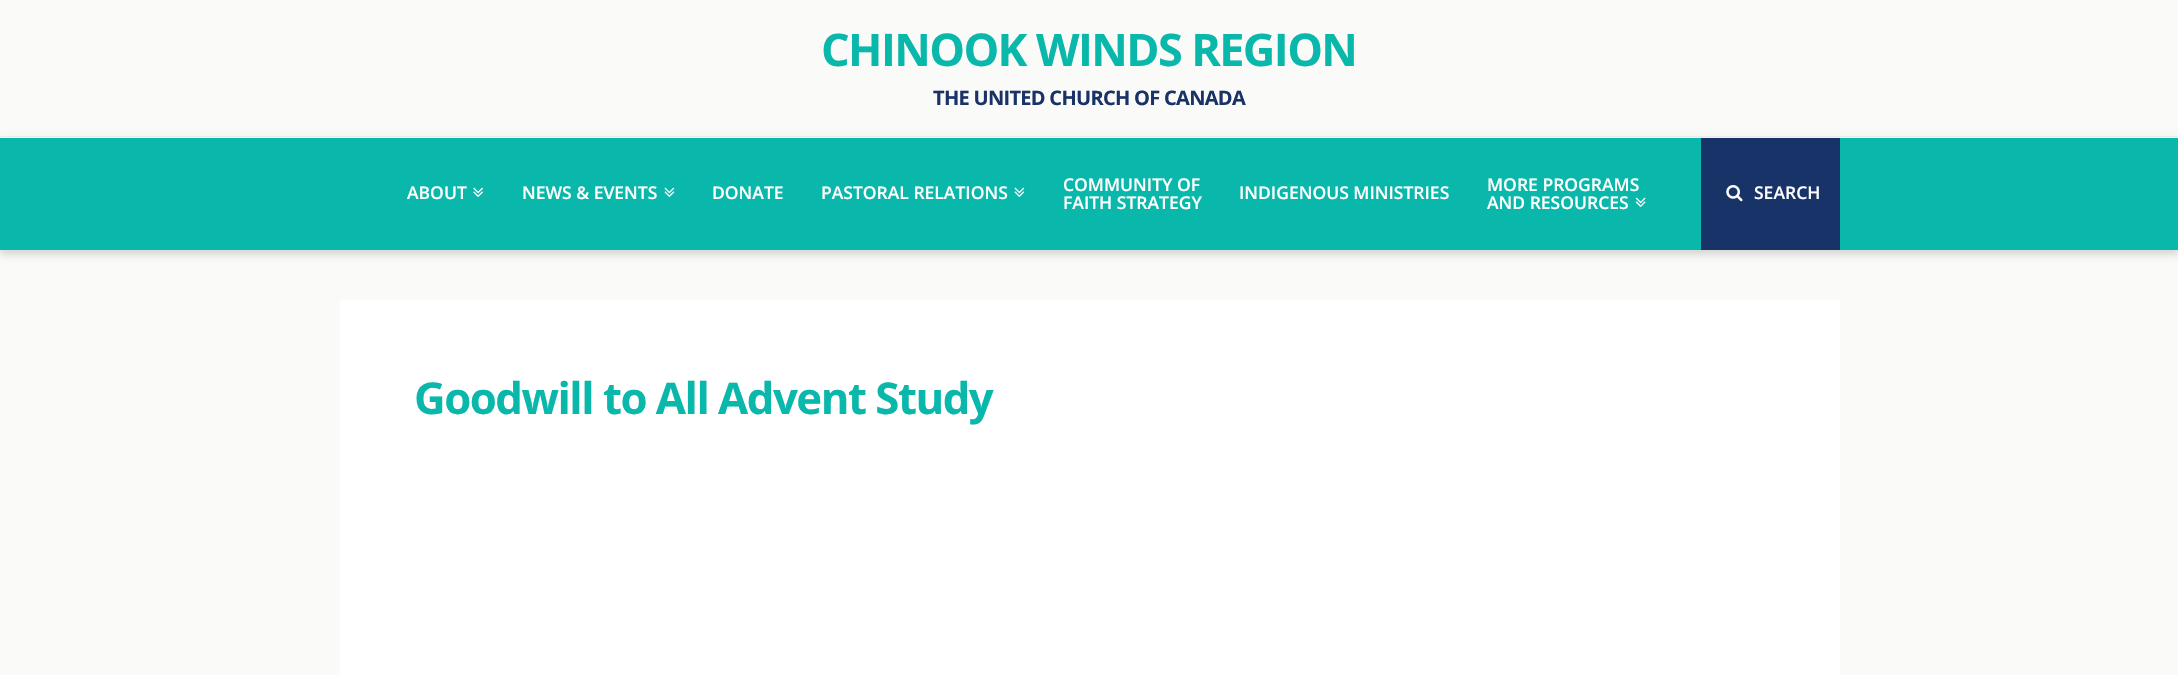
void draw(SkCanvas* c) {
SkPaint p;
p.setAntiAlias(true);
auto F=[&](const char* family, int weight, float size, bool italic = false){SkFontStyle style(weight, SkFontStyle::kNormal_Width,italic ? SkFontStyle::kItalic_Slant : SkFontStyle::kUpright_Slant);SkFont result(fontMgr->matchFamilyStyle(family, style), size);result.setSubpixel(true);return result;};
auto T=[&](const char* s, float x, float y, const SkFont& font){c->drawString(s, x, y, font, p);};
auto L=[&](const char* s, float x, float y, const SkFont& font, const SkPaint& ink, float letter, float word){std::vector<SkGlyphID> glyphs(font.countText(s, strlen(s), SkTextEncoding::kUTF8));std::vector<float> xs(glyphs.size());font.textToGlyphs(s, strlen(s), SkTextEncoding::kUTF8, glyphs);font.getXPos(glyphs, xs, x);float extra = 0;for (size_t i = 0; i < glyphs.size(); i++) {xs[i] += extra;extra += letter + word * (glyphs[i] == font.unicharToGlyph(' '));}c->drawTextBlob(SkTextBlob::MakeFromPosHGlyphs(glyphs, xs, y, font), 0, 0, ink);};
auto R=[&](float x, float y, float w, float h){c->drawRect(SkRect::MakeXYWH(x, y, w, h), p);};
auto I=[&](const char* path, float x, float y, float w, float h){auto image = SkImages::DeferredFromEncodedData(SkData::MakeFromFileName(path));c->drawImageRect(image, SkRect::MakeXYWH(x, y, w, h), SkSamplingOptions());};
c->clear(0xfffafaf8);
p.setColor(0xfff2f2f2);
R(0,136,2178,1);
auto f1 = F("Open Sans",700,45);
p.setColor(0xff09b7ab);
L("CHINOOK WINDS REGION",821,66,f1,p,-1.6,0);
auto f2 = F("Open Sans",700,20);
p.setColor(0xff193368);
L("THE UNITED CHURCH OF CANADA",933,105,f2,p,-.7,0);
p.setColor(0x29000000);
p.setMaskFilter(SkMaskFilter::MakeBlur(kNormal_SkBlurStyle, 4));
c->drawRect(SkRect::MakeXYWH(0,141,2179,113),p);
p.setMaskFilter(nullptr);
p.setColor(0xff09b7ab);
R(0,138,2178,112);
auto f3 = F("Open Sans",600,17.5);
p.setColor(0xffffffff);
T("ABOUT",407,199,f3);
I("1.png",473,187,10,10);
T("NEWS & EVENTS",522,199,f3);
I("2.png",664,187,11,10);
T("DONATE",712,199,f3);
T("PASTORAL RELATIONS",821,199,f3);
I("2.png",1014,187,11,10);
T("COMMUNITY OF",1063,191,f3);
T("FAITH STRATEGY",1063,209,f3);
T("INDIGENOUS MINISTRIES",1239,199,f3);
T("MORE PROGRAMS",1487,191,f3);
T("AND RESOURCES",1487,209,f3);
I("3.png",1635,197,11,10);
p.setColor(0xff183368);
R(1701,138,139,112);
I("4.png",1726,185,17,17);
p.setColor(0xffffffff);
T("SEARCH",1754,199,f3);
R(340,300,1500,375);
auto f4 = F("Open Sans",700,43.75);
p.setColor(0xff09b7ab);
L("Goodwill to All Advent Study",414,414,f4,p,-1.5,0);
}
